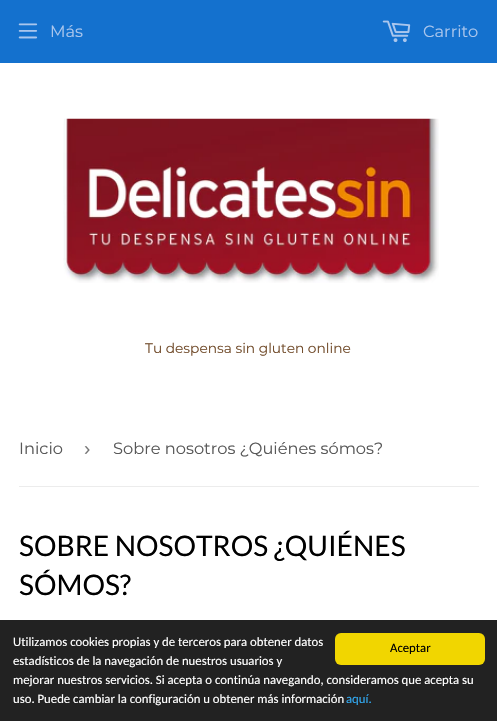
void draw(SkCanvas* c) {
SkPaint p;
p.setAntiAlias(true);
auto F=[&](const char* family, int weight, float size, bool italic = false){SkFontStyle style(weight, SkFontStyle::kNormal_Width,italic ? SkFontStyle::kItalic_Slant : SkFontStyle::kUpright_Slant);SkFont result(fontMgr->matchFamilyStyle(family, style), size);result.setSubpixel(true);return result;};
auto T=[&](const char* s, float x, float y, const SkFont& font){c->drawString(s, x, y, font, p);};
auto R=[&](float x, float y, float w, float h){c->drawRect(SkRect::MakeXYWH(x, y, w, h), p);};
auto Q=[&](float x, float y, float w, float h, float radius){c->drawRoundRect(SkRect::MakeXYWH(x, y, w, h), radius, radius, p);};
auto I=[&](const char* path, float x, float y, float w, float h){auto image = SkImages::DeferredFromEncodedData(SkData::MakeFromFileName(path));c->drawImageRect(image, SkRect::MakeXYWH(x, y, w, h), SkSamplingOptions());};
c->clear(0xffffffff);
p.setColor(0xff1471ce);
R(0,0,497,63);
I("1.png",18,23,20,16);
auto f1 = F("Montserrat",400,16.25);
p.setColor(0xffaac6ed);
T("Más",50,37,f1);
I("2.png",382,20,29,23);
T("Carrito",423,37,f1);
I("3.png",63,118,376,165);
auto f2 = F("Montserrat",400,13.75);
p.setColor(0xff714b2a);
T("Tu despensa sin gluten online",145,353,f2);
p.setColor(0xffececec);
R(19,486,460,1);
p.setColor(0xff585858);
T("Inicio",19,454,f1);
auto f3 = F("Liberation Sans",400,19);
p.setColor(0xff767676);
T("›",84,455,f3);
p.setColor(0xff585858);
T("Sobre nosotros ¿Quiénes sómos?",113,454,f1);
auto f4 = F("Lato",400,28.2);
p.setColor(0xff000000);
T("SOBRE NOSOTROS ¿QUIÉNES",19,556,f4);
T("SÓMOS?",19,595,f4);
p.setColor(0xff222222);
R(0,620,497,101);
auto f5 = F("Carlito",400,12.75);
p.setColor(0xffffffff);
T("Utilizamos cookies propias y de terceros para obtener datos",13,646,f5);
T("estadísticos de la navegación de nuestros usuarios y",13,665,f5);
T("mejorar nuestros servicios. Si acepta o continúa navegando, consideramos que acepta su",13,684,f5);
T("uso. Puede cambiar la configuración u obtener más información",13,703,f5);
p.setColor(0xff31a8f0);
T("aquí.",346,703,f5);
p.setColor(0xfff1d600);
Q(335,633,150,32,6);
p.setColor(0xff000000);
T("Aceptar",390,652,f5);
}
